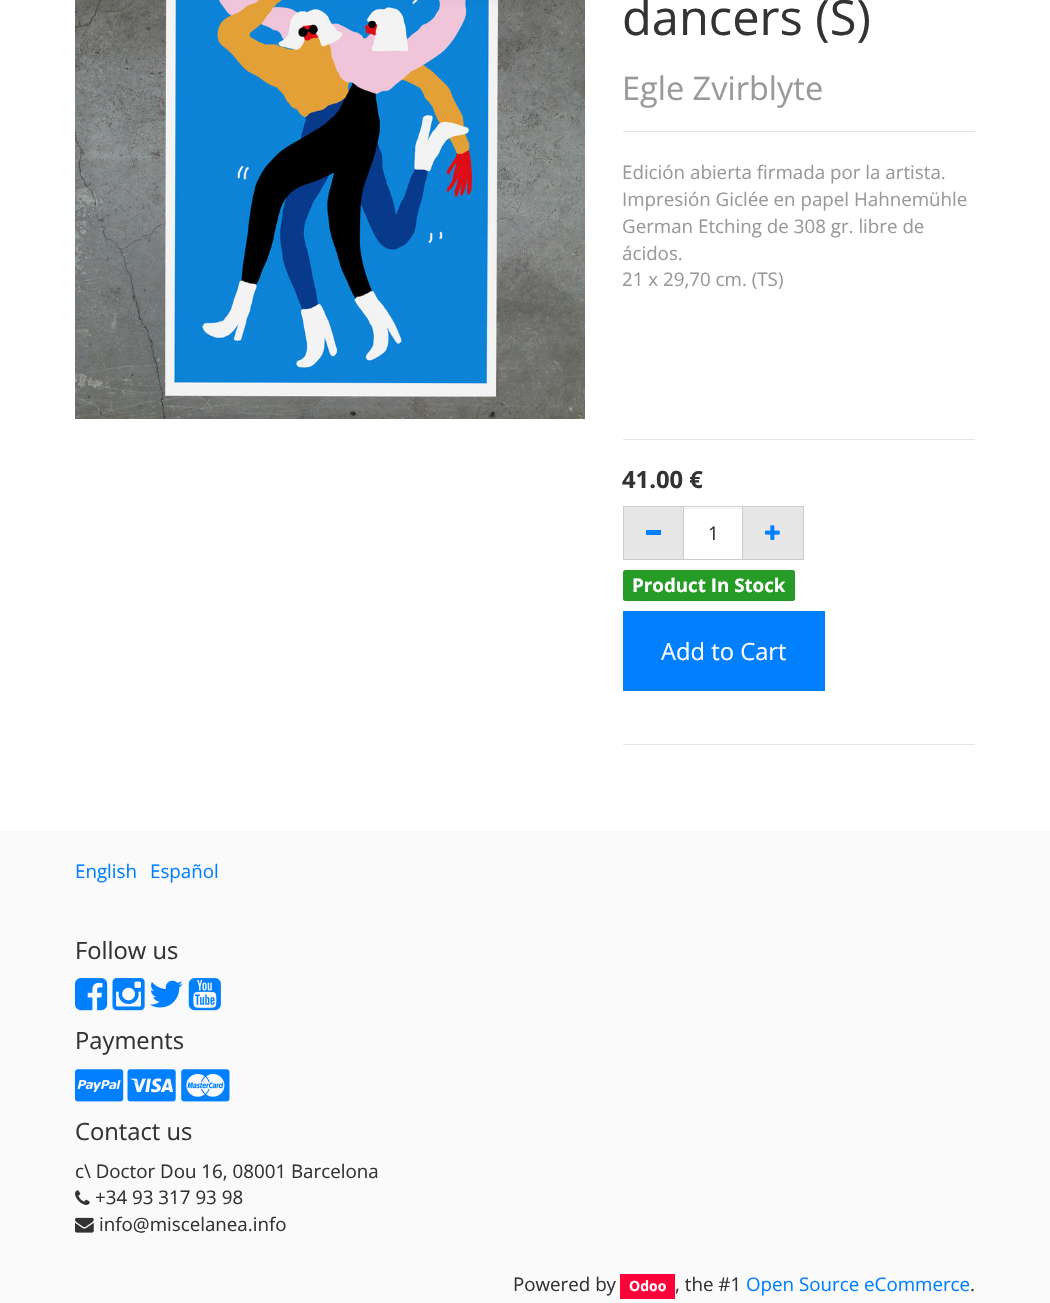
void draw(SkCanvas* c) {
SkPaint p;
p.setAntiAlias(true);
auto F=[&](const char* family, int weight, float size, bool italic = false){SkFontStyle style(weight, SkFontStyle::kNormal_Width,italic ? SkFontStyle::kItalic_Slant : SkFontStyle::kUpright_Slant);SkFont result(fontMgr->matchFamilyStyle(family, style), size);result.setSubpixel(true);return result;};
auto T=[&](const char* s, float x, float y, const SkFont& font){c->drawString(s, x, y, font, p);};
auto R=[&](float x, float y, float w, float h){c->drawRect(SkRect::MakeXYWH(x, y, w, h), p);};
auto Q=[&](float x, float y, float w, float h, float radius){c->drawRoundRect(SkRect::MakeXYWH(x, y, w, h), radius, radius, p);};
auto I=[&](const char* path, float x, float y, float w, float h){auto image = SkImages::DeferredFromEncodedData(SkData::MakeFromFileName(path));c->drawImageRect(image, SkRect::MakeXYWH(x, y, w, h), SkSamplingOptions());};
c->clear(0xffffffff);
I("1.png",75,0,510,419);
auto f1 = F("Open Sans",400,48.75);
p.setColor(0xff333333);
T("dancers (S)",622,35,f1);
auto f2 = F("Open Sans",400,32.5);
p.setColor(0xff999999);
T("Egle Zvirblyte",622,100,f2);
p.setColor(0xffe6e6e6);
R(623,131,352,1);
auto f3 = F("Open Sans",400,18.75);
p.setColor(0xff999999);
T("Edición abierta firmada por la artista.",622,179,f3);
T("Impresión Giclée en papel Hahnemühle",622,206,f3);
T("German Etching de 308 gr. libre de",622,233,f3);
T("ácidos.",622,260,f3);
T("21 x 29,70 cm. (TS)",622,286,f3);
p.setColor(0xffe6e6e6);
R(623,439,352,1);
auto f4 = F("Open Sans",700,23.75);
p.setColor(0xff333333);
T("41.00 €",622,488,f4);
p.setColor(0xffe6e6e6);
R(624,507,59,52);
p.setColor(0xffcccccc);
R(623,506,60,1);
R(623,559,60,1);
R(623,506,1,54);
p.setColor(0xff007fff);
R(646,530,15,5);
p.setColor(0xffececec);
R(684,508,57,1);
p.setStroke(true);
p.setStrokeWidth(1);
p.setColor(0xffcccccc);
c->drawRect(SkRect::MakeXYWH(683.5,506.5,59,53),p);
p.setStroke(false);
p.setColor(0xff333333);
T("1",708,540,f3);
p.setColor(0xffe6e6e6);
R(743,507,60,52);
p.setColor(0xffcccccc);
R(743,506,61,1);
R(803,506,1,54);
R(743,559,61,1);
I("2.png",765,525,15,15);
p.setColor(0xff269c26);
Q(623,570,172,31,2.5);
auto f5 = F("Open Sans",700,18.75);
p.setColor(0xffffffff);
T("Product In Stock",632,592,f5);
p.setColor(0xff007fff);
R(623,611,202,80);
auto f6 = F("Open Sans",400,23.75);
p.setColor(0xffffffff);
T("Add to Cart",661,660,f6);
p.setColor(0xffe6e6e6);
R(623,744,352,1);
p.setColor(0xfffafafa);
R(0,831,1050,472);
p.setColor(0xff007fff);
T("English",75,878,f3);
T("Español",150,878,f3);
p.setColor(0xff333333);
T("Follow us",75,959,f6);
I("3.png",75,978,33,33);
I("4.png",112,978,33,33);
I("5.png",149,980,34,28);
I("6.png",188,978,33,33);
T("Payments",75,1049,f6);
I("7.png",75,1069,49,33);
I("8.png",127,1069,49,33);
I("9.png",181,1069,49,33);
T("Contact us",75,1140,f6);
T("c\\ Doctor Dou 16, 08001 Barcelona",75,1178,f3);
I("10.png",75,1190,15,15);
T("+34 93 317 93 98",95,1204,f3);
I("11.png",75,1217,19,16);
T("info@miscelanea.info",99,1231,f3);
T("Powered by",513,1291,f3);
p.setColor(0xffff0039);
R(620,1274,55,25);
auto f7 = F("Open Sans",700,14);
p.setColor(0xffffffff);
T("Odoo",629,1291,f7);
p.setColor(0xff333333);
T(", the #1",675,1291,f3);
p.setColor(0xff007fff);
T("Open Source eCommerce",746,1291,f3);
p.setColor(0xff333333);
T(".",970,1291,f3);
}
